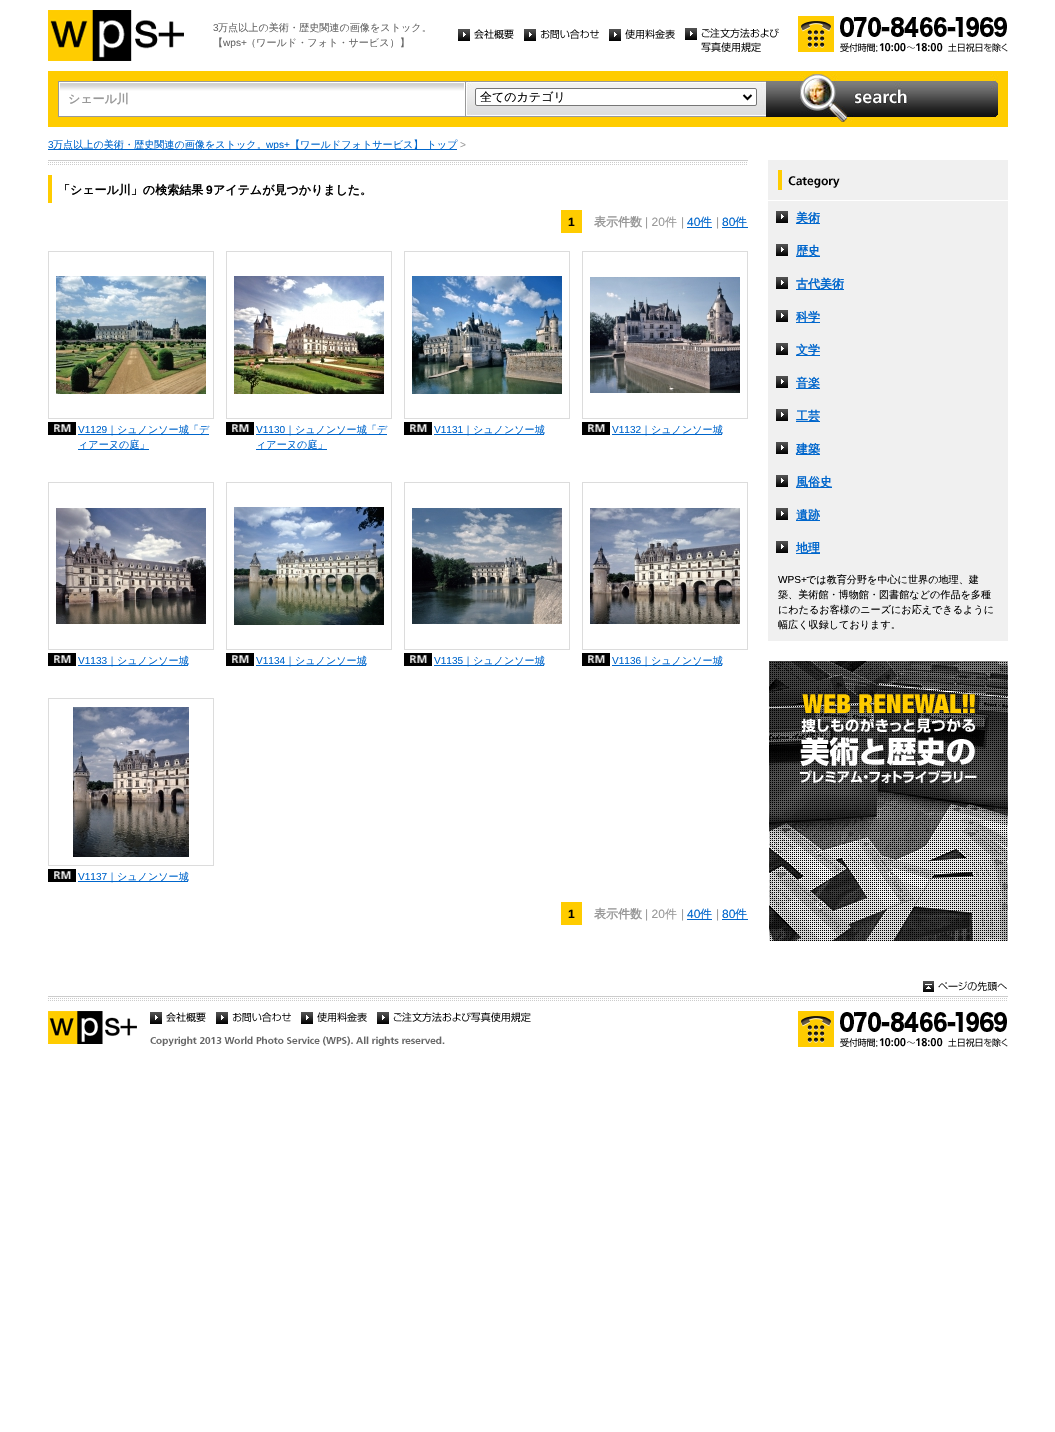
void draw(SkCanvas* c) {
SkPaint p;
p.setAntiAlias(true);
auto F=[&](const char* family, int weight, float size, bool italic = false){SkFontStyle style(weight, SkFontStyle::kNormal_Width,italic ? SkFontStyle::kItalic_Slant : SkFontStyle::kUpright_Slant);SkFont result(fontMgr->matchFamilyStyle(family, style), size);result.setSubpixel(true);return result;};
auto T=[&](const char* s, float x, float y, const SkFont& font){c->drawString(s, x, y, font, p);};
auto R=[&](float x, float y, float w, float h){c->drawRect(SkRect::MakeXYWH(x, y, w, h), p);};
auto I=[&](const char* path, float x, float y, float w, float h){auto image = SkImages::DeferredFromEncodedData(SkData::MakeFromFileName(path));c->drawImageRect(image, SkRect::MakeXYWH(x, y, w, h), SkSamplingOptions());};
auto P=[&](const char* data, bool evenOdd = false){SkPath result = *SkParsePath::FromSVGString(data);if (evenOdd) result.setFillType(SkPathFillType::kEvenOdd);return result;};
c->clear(0xffffffff);
I("1.png",48,10,136,51);
auto f1 = F("Liberation Sans",400,10.1);
p.setColor(0xff666666);
T("3",213,31,f1);
auto f2 = F("WenQuanYi Zen Hei",500,10.1);
T("万点以上の美術・歴史関連の画像をストック。",218,31,f2);
T("【",213,46,f2);
T("wps+",223,46,f1);
T("（ワールド・フォト・サービス）】",246,46,f2);
I("2.png",458,29,56,12);
I("3.png",524,29,75,12);
I("4.png",609,29,66,12);
I("5.png",685,28,94,24);
I("6.png",798,16,210,36);
p.setColor(0xffffcc00);
R(48,71,960,56);
I("7.png",58,81,407,36);
auto f3 = F("WenQuanYi Zen Hei",700,12);
p.setColor(0xff999999);
T("シェール川",68,103,f3);
I("8.png",465,81,301,36);
p.setColor(0xffffffff);
c->drawRoundRect(SkRect::MakeXYWH(475.5,88.5,281,17),1.5,1.5,p);
p.setStroke(true);
p.setStrokeWidth(1);
p.setColor(0xff767676);
c->drawRoundRect(SkRect::MakeXYWH(475.5,88.5,281,17),1.5,1.5,p);
p.setStrokeWidth(2);
p.setColor(0xff000000);
c->drawPath(P("M743.5 95l4 4l4-4"),p);
auto f4 = F("WenQuanYi Zen Hei",500,12);
p.setStroke(false);
T("全てのカテゴリ",480,101,f4);
I("9.png",766,74,232,48);
p.setColor(0xff0066cc);
T("3",48,148,f1);
R(48,149,409,1);
T("万点以上の美術・歴史関連の画像をストック。",53,148,f2);
T("wps+",266,148,f1);
T("【ワールドフォトサービス】 トップ",290,148,f2);
p.setColor(0xff999999);
T(">",460,148,f1);
I("10.png",48,160,700,5);
p.setColor(0xffffcc00);
R(48,175,4,28);
p.setColor(0xff000000);
T("「シェール川」の検索結果",58,194,f3);
auto f5 = F("Liberation Sans",700,12);
T("9",206,194,f5);
T("アイテムが見つかりました。",213,194,f3);
p.setColor(0xffffcc00);
R(561,210,21,23);
p.setColor(0xff000000);
T("1",568,226,f5);
p.setColor(0xff999999);
T("表示件数",594,226,f3);
auto f6 = F("Liberation Sans",400,12);
T("| 20",645,226,f6);
T("件",665,226,f4);
T("|",681,226,f6);
p.setColor(0xff0066cc);
T("40",687,226,f6);
R(687,227,25,1);
T("件",700,226,f4);
p.setColor(0xff999999);
T("|",716,226,f6);
p.setColor(0xff0066cc);
T("80",722,226,f6);
R(722,227,26,1);
T("件",735,226,f4);
p.setColor(0xffdcdcdc);
R(48,251,166,1);
R(213,251,1,168);
R(48,418,166,1);
R(48,251,1,168);
I("11.png",56,276,150,118);
I("12.png",48,422,28,13);
p.setColor(0xff0066cc);
T("V1129",78,433,f1);
R(78,434,131,1);
T("｜シュノンソー城「デ",107,433,f2);
R(78,449,71,1);
T("ィアーヌの庭」",78,448,f2);
p.setColor(0xffdcdcdc);
R(226,251,166,1);
R(391,251,1,168);
R(226,418,166,1);
R(226,251,1,168);
I("13.png",234,276,150,118);
I("12.png",226,422,28,13);
p.setColor(0xff0066cc);
T("V1130",256,433,f1);
R(256,434,131,1);
T("｜シュノンソー城「デ",285,433,f2);
R(256,449,71,1);
T("ィアーヌの庭」",256,448,f2);
p.setColor(0xffdcdcdc);
R(404,251,166,1);
R(569,251,1,168);
R(404,418,166,1);
R(404,251,1,168);
I("14.png",412,276,150,118);
I("12.png",404,422,28,13);
p.setColor(0xff0066cc);
T("V1131",434,433,f1);
R(434,434,110,1);
T("｜シュノンソー城",463,433,f2);
p.setColor(0xffdcdcdc);
R(582,251,166,1);
R(747,251,1,168);
R(582,418,166,1);
R(582,251,1,168);
I("15.png",590,277,150,116);
I("16.png",582,422,28,13);
p.setColor(0xff0066cc);
T("V1132",612,433,f1);
R(612,434,110,1);
T("｜シュノンソー城",641,433,f2);
p.setColor(0xffdcdcdc);
R(48,482,166,1);
R(213,482,1,168);
R(48,649,166,1);
R(48,482,1,168);
I("17.png",56,508,150,116);
I("12.png",48,653,28,13);
p.setColor(0xff0066cc);
T("V1133",78,664,f1);
R(78,665,110,1);
T("｜シュノンソー城",107,664,f2);
p.setColor(0xffdcdcdc);
R(226,482,166,1);
R(391,482,1,168);
R(226,649,166,1);
R(226,482,1,168);
I("18.png",234,507,150,118);
I("12.png",226,653,28,13);
p.setColor(0xff0066cc);
T("V1134",256,664,f1);
R(256,665,110,1);
T("｜シュノンソー城",285,664,f2);
p.setColor(0xffdcdcdc);
R(404,482,166,1);
R(569,482,1,168);
R(404,649,166,1);
R(404,482,1,168);
I("19.png",412,508,150,116);
I("12.png",404,653,28,13);
p.setColor(0xff0066cc);
T("V1135",434,664,f1);
R(434,665,110,1);
T("｜シュノンソー城",463,664,f2);
p.setColor(0xffdcdcdc);
R(582,482,166,1);
R(747,482,1,168);
R(582,649,166,1);
R(582,482,1,168);
I("20.png",590,508,150,116);
I("16.png",582,653,28,13);
p.setColor(0xff0066cc);
T("V1136",612,664,f1);
R(612,665,110,1);
T("｜シュノンソー城",641,664,f2);
p.setColor(0xffdcdcdc);
R(48,698,166,1);
R(213,698,1,168);
R(48,865,166,1);
R(48,698,1,168);
I("21.png",73,707,116,150);
I("12.png",48,869,28,13);
p.setColor(0xff0066cc);
T("V1137",78,880,f1);
R(78,881,110,1);
T("｜シュノンソー城",107,880,f2);
p.setColor(0xffffcc00);
R(561,902,21,23);
p.setColor(0xff000000);
T("1",568,918,f5);
p.setColor(0xff999999);
T("表示件数",594,918,f3);
T("| 20",645,918,f6);
T("件",665,918,f4);
T("|",681,918,f6);
p.setColor(0xff0066cc);
T("40",687,918,f6);
R(687,919,25,1);
T("件",700,918,f4);
p.setColor(0xff999999);
T("|",716,918,f6);
p.setColor(0xff0066cc);
T("80",722,918,f6);
R(722,919,26,1);
T("件",735,918,f4);
I("22.png",768,160,240,40);
p.setColor(0xfff0f0f0);
R(768,201,240,440);
I("23.png",776,211,12,12);
p.setColor(0xff0066cc);
R(796,223,24,1);
T("美術",796,222,f3);
I("23.png",776,244,12,12);
R(796,256,24,1);
T("歴史",796,255,f3);
I("23.png",776,277,12,12);
R(796,289,48,1);
T("古代美術",796,288,f3);
I("23.png",776,310,12,12);
R(796,322,24,1);
T("科学",796,321,f3);
I("23.png",776,343,12,12);
R(796,355,24,1);
T("文学",796,354,f3);
I("23.png",776,376,12,12);
R(796,388,24,1);
T("音楽",796,387,f3);
I("23.png",776,409,12,12);
R(796,421,24,1);
T("工芸",796,420,f3);
I("23.png",776,442,12,12);
R(796,454,24,1);
T("建築",796,453,f3);
I("23.png",776,475,12,12);
R(796,487,36,1);
T("風俗史",796,486,f3);
I("23.png",776,508,12,12);
R(796,520,24,1);
T("遺跡",796,519,f3);
I("23.png",776,541,12,12);
R(796,553,24,1);
T("地理",796,552,f3);
p.setColor(0xff000000);
T("WPS+",778,583,f1);
T("では教育分野を中心に世界の地理、建",806,583,f2);
T("築、美術館・博物館・図書館などの作品を多種",778,598,f2);
T("にわたるお客様のニーズにお応えできるように",778,613,f2);
T("幅広く収録しております。",778,628,f2);
I("24.png",769,661,239,280);
I("25.png",48,996,960,5);
I("26.png",923,981,84,11);
I("27.png",48,1011,89,33);
I("2.png",150,1012,56,12);
I("3.png",216,1012,75,12);
I("4.png",301,1012,66,12);
I("28.png",377,1012,154,12);
I("6.png",798,1011,210,36);
I("29.png",150,1036,295,10);
}
